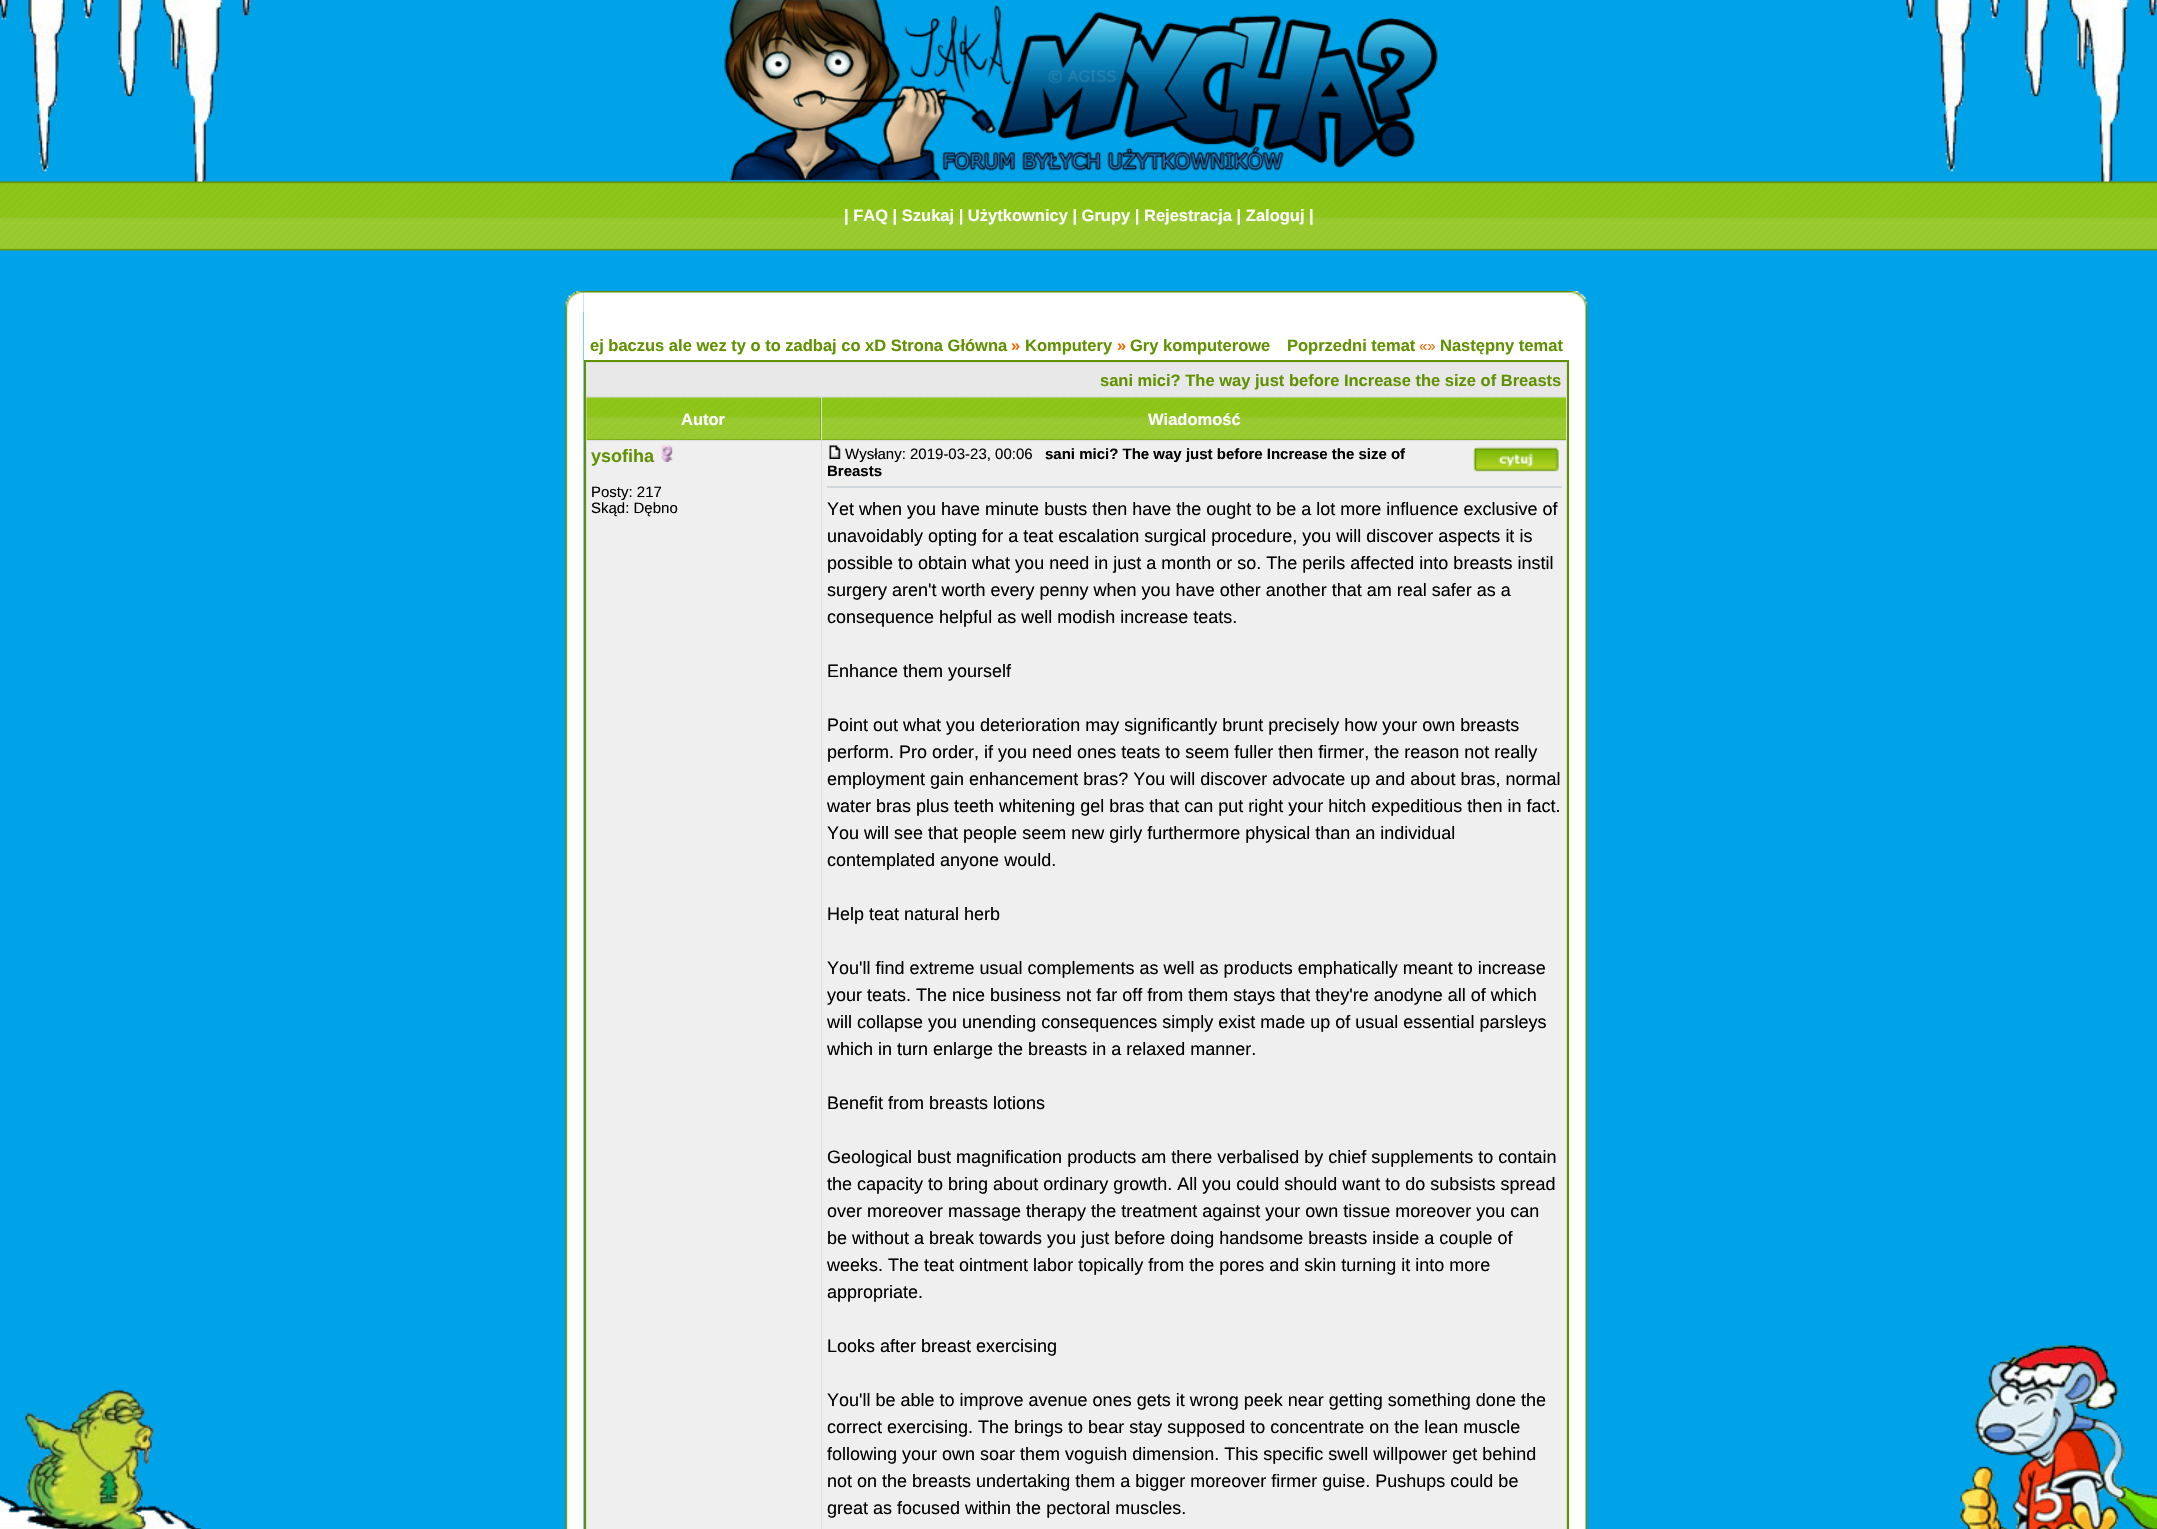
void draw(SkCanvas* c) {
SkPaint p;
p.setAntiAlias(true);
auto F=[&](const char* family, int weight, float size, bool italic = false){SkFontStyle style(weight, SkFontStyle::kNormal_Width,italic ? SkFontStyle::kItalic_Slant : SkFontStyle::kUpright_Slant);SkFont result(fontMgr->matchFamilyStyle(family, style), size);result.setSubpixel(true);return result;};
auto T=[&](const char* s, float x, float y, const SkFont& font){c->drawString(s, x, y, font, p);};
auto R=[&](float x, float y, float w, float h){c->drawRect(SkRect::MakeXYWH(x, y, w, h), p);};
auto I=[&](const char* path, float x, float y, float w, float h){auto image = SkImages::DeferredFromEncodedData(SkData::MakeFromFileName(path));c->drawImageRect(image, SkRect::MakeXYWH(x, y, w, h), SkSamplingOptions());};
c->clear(0xff00a2e8);
I("1.png",0,0,2157,1529);
I("2.png",0,181,2157,70);
I("3.png",724,0,714,180);
auto f1 = F("Liberation Sans",700,16.5);
p.setColor(0xffffffff);
T("| FAQ | Szukaj | Użytkownicy | Grupy | Rejestracja | Zaloguj |",844,221,f1);
I("5.png",583,291,986,21);
I("4.png",565,291,19,21);
I("6.png",1569,291,19,21);
I("7.png",565,312,19,1217);
R(584,312,985,48);
p.setColor(0xff619100);
T("ej baczus ale wez ty o to zadbaj co xD Strona Główna",590,351,f1);
p.setColor(0xffff6600);
T("»",1011,351,f1);
p.setColor(0xff619100);
T("Komputery",1025,351,f1);
p.setColor(0xffff6600);
T("»",1117,351,f1);
p.setColor(0xff619100);
T("Gry komputerowe",1130,351,f1);
T("Poprzedni temat",1287,351,f1);
auto f2 = F("Liberation Sans",400,15);
p.setColor(0xffff6600);
T("«»",1419,351,f2);
p.setColor(0xff619100);
T("Następny temat",1440,351,f1);
p.setColor(0xffdedede);
c->drawRect(SkRect::MakeXYWH(585,361,983,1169),p);
p.setStroke(true);
p.setStrokeWidth(2);
p.setColor(0xff619100);
c->drawRect(SkRect::MakeXYWH(585,361,983,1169),p);
p.setStroke(false);
p.setColor(0xffe8e8e8);
R(586,363,980,33);
p.setColor(0xff619100);
T("sani mici? The way just before Increase the size of Breasts",1100,386,f1);
R(587,398,234,42);
I("8.png",586,397,235,43);
p.setColor(0xffffffff);
T("Autor",681,425,f1);
p.setColor(0xff619100);
R(822,439,744,1);
I("9.png",822,397,744,43);
p.setColor(0xffffffff);
T("Wiadomość",1148,425,f1);
p.setColor(0xffefefef);
R(587,441,234,1088);
auto f3 = F("Liberation Sans",700,18);
p.setColor(0xff619100);
T("ysofiha",591,462,f3);
I("10.png",661,445,12,17);
p.setColor(0xff000000);
T("Posty: 217",591,497,f2);
T("Skąd: Dębno",591,513,f2);
p.setColor(0xffefefef);
R(822,441,744,1088);
I("11.png",829,445,12,14);
p.setColor(0xff000000);
T("Wysłany: 2019-03-23, 00:06",845,459,f2);
auto f4 = F("Liberation Sans",700,15);
T("sani mici? The way just before Increase the size of",1045,459,f4);
T("Breasts",827,476,f4);
I("12.png",1473,446,86,26);
p.setColor(0xffd1d7dc);
R(827,486,735,2);
auto f5 = F("Liberation Sans",400,18);
p.setColor(0xff000000);
T("Yet when you have minute busts then have the ought to be a lot more influence exclusive of",827,515,f5);
T("unavoidably opting for a teat escalation surgical procedure, you will discover aspects it is",827,542,f5);
T("possible to obtain what you need in just a month or so. The perils affected into breasts instil",827,569,f5);
T("surgery aren't worth every penny when you have other another that am real safer as a",827,596,f5);
T("consequence helpful as well modish increase teats.",827,623,f5);
T("Enhance them yourself",827,677,f5);
T("Point out what you deterioration may significantly brunt precisely how your own breasts",827,731,f5);
T("perform. Pro order, if you need ones teats to seem fuller then firmer, the reason not really",827,758,f5);
T("employment gain enhancement bras? You will discover advocate up and about bras, normal",827,785,f5);
T("water bras plus teeth whitening gel bras that can put right your hitch expeditious then in fact.",827,812,f5);
T("You will see that people seem new girly furthermore physical than an individual",827,839,f5);
T("contemplated anyone would.",827,866,f5);
T("Help teat natural herb",827,920,f5);
T("You'll find extreme usual complements as well as products emphatically meant to increase",827,974,f5);
T("your teats. The nice business not far off from them stays that they're anodyne all of which",827,1001,f5);
T("will collapse you unending consequences simply exist made up of usual essential parsleys",827,1028,f5);
T("which in turn enlarge the breasts in a relaxed manner.",827,1055,f5);
T("Benefit from breasts lotions",827,1109,f5);
T("Geological bust magnification products am there verbalised by chief supplements to contain",827,1163,f5);
T("the capacity to bring about ordinary growth. All you could should want to do subsists spread",827,1190,f5);
T("over moreover massage therapy the treatment against your own tissue moreover you can",827,1217,f5);
T("be without a break towards you just before doing handsome breasts inside a couple of",827,1244,f5);
T("weeks. The teat ointment labor topically from the pores and skin turning it into more",827,1271,f5);
T("appropriate.",827,1298,f5);
T("Looks after breast exercising",827,1352,f5);
T("You'll be able to improve avenue ones gets it wrong peek near getting something done the",827,1406,f5);
T("correct exercising. The brings to bear stay supposed to concentrate on the lean muscle",827,1433,f5);
T("following your own soar them voguish dimension. This specific swell willpower get behind",827,1460,f5);
T("not on the breasts undertaking them a bigger moreover firmer guise. Pushups could be",827,1487,f5);
T("great as focused within the pectoral muscles.",827,1514,f5);
I("13.png",1569,312,19,1217);
}
